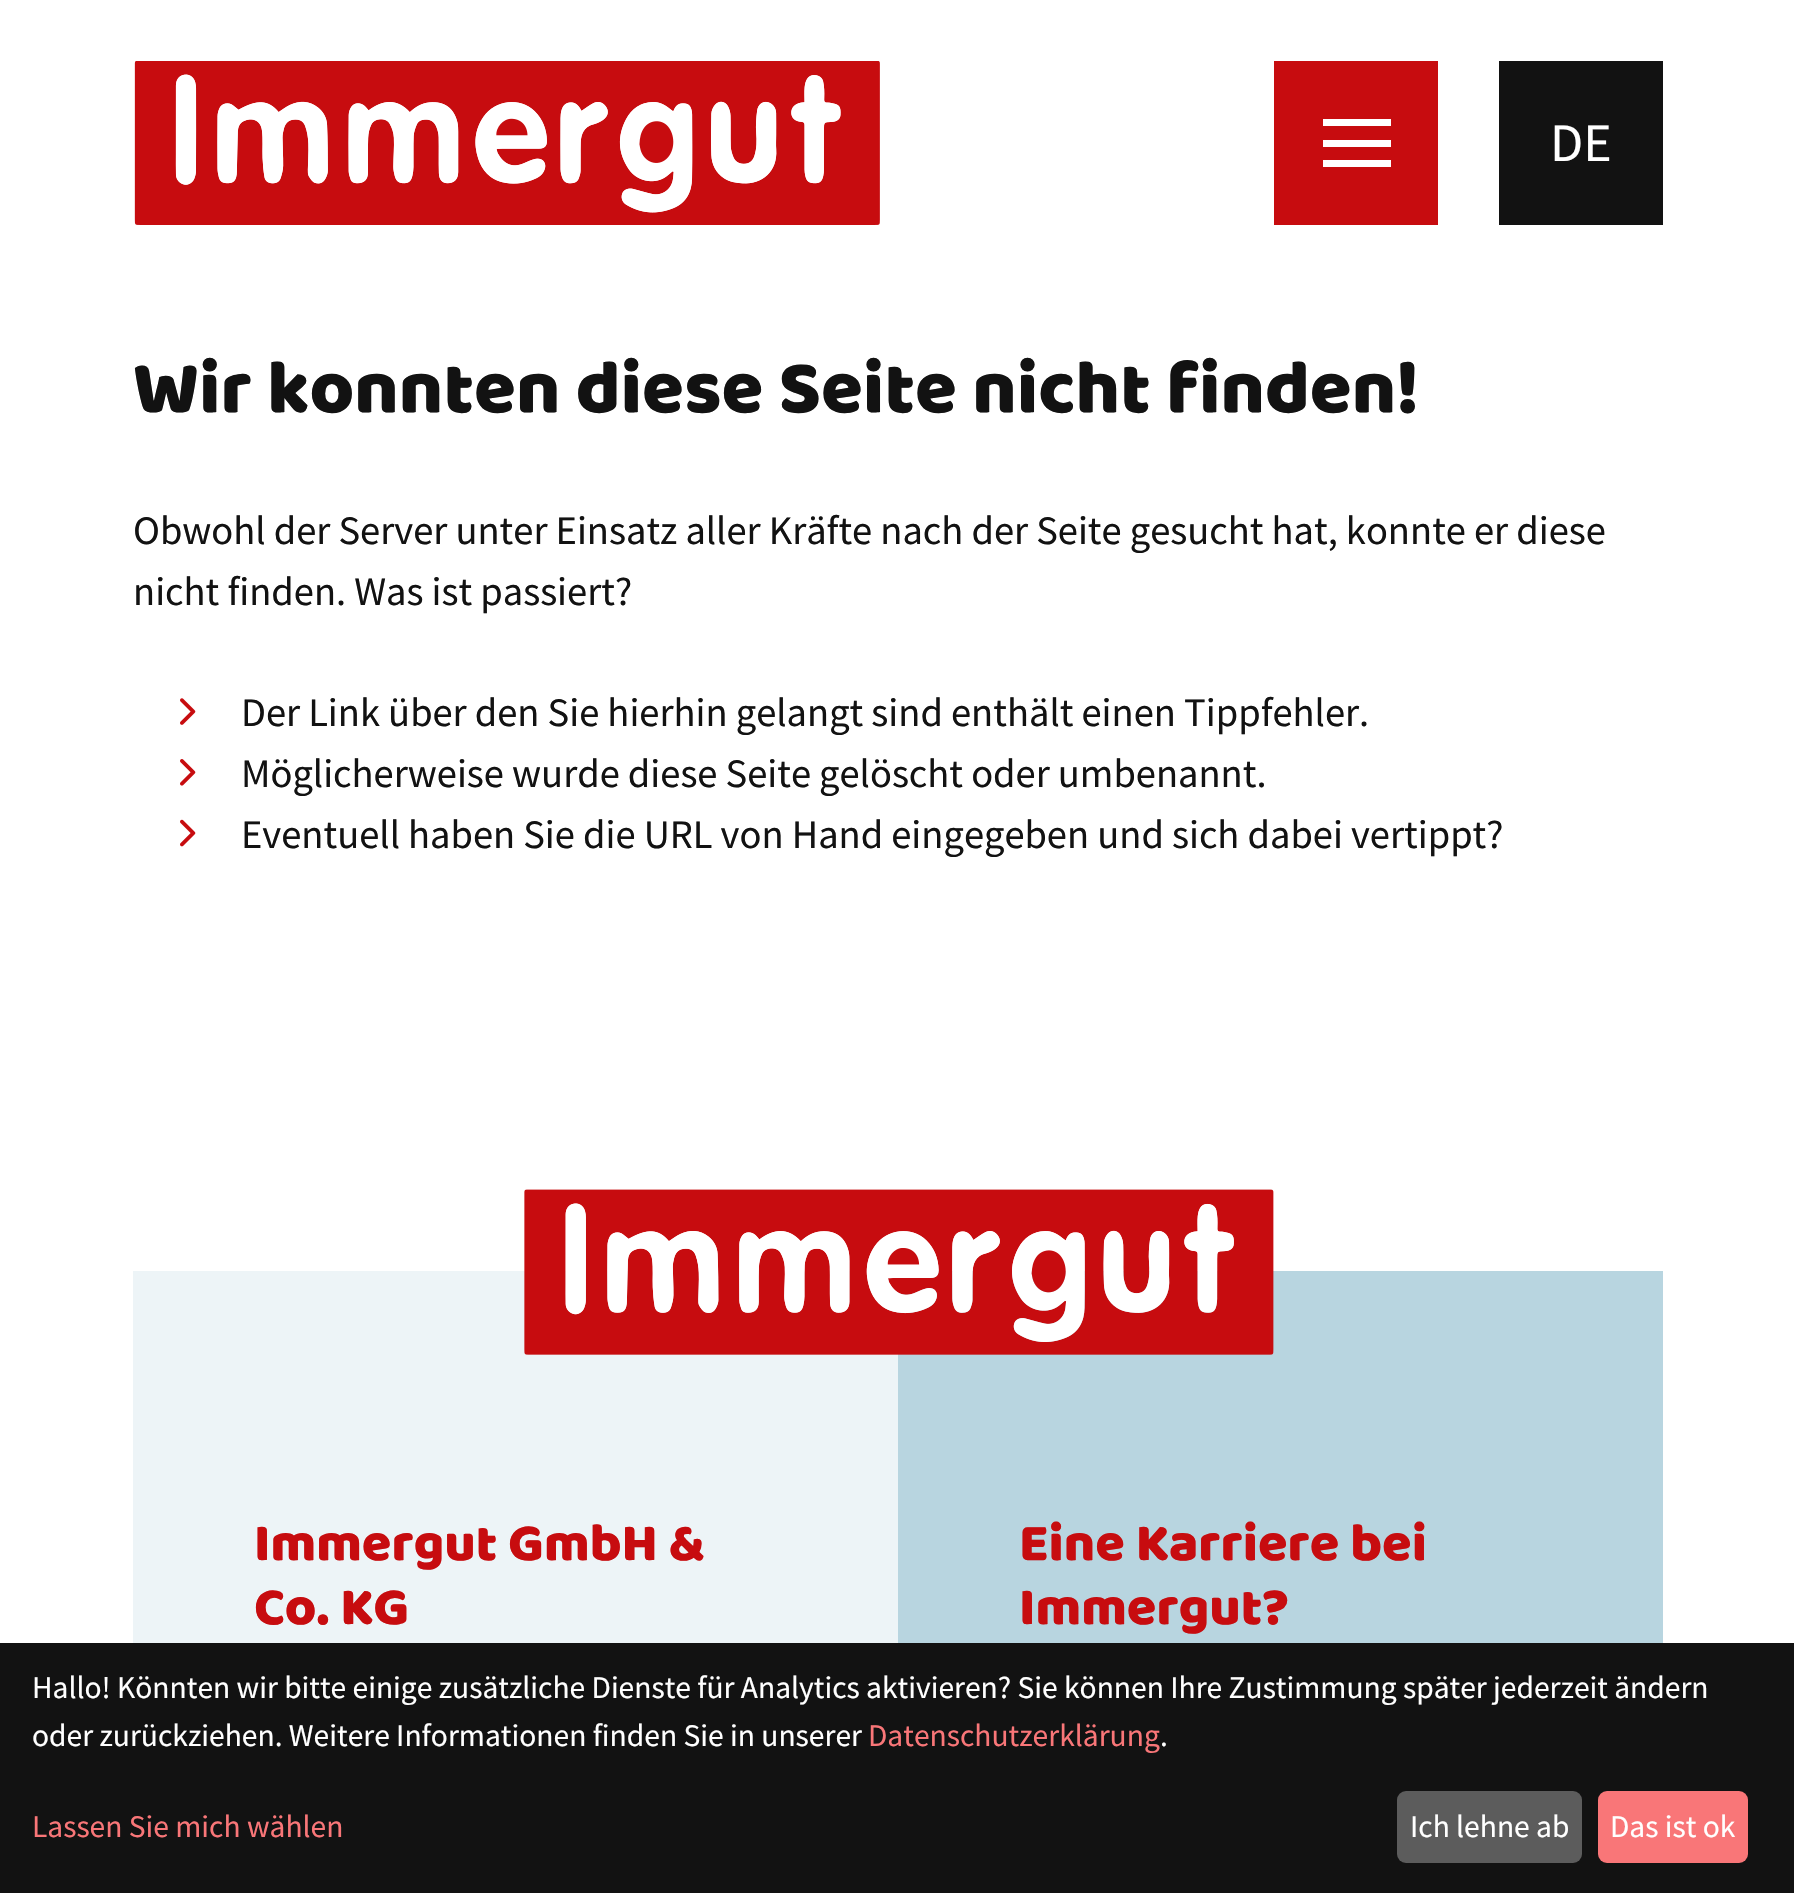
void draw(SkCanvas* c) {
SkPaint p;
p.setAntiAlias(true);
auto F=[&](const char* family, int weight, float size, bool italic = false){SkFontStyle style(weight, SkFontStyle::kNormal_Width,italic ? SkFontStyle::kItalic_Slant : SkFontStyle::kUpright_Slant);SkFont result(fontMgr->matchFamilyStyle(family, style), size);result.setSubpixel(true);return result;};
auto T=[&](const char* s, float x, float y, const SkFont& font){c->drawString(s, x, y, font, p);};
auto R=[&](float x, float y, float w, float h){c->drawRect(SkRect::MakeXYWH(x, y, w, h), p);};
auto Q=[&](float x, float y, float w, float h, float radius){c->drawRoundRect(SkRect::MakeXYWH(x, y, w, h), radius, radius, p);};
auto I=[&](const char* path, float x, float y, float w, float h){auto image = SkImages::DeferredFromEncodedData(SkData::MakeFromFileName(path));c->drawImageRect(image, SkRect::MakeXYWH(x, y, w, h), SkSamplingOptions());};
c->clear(0xffffffff);
I("1.png",134,61,746,164);
p.setColor(0xffc70c0f);
R(1274,61,164,164);
p.setColor(0xffffffff);
R(1323,140,68,7);
R(1323,119,68,7);
R(1323,160,68,7);
p.setColor(0xff121212);
R(1499,61,164,164);
auto f1 = F("Source Sans Pro",400,54);
p.setColor(0xffffffff);
T("DE",1550,161,f1);
auto f2 = F("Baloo",400,76.4);
p.setColor(0xff121212);
T("Wir konnten diese Seite nicht finden!",133,412,f2);
auto f3 = F("Source Sans Pro",400,40.5);
T("Obwohl der Server unter Einsatz aller Kräfte nach der Seite gesucht hat, konnte er diese",133,544,f3);
T("nicht finden. Was ist passiert?",133,605,f3);
I("2.png",180,698,16,27);
T("Der Link über den Sie hierhin gelangt sind enthält einen Tippfehler.",241,726,f3);
I("3.png",180,759,16,27);
T("Möglicherweise wurde diese Seite gelöscht oder umbenannt.",241,787,f3);
I("4.png",180,819,16,28);
T("Eventuell haben Sie die URL von Hand eingegeben und sich dabei vertippt?",241,848,f3);
p.setColor(0xffedf4f7);
R(133,1271,765,372);
p.setColor(0xffb8d5e0);
R(898,1271,765,372);
I("5.png",524,1189,750,166);
auto f4 = F("Baloo",400,54);
p.setColor(0xffc70c0f);
T("Immergut GmbH &",254,1560,f4);
T("Co. KG",254,1624,f4);
T("Eine Karriere bei",1019,1560,f4);
T("Immergut?",1019,1624,f4);
p.setColor(0xff121212);
R(0,1643,1794,250);
auto f5 = F("Source Sans Pro",400,31.5);
p.setColor(0xffffffff);
T("Hallo! Könnten wir bitte einige zusätzliche Dienste für Analytics aktivieren? Sie können Ihre Zustimmung später jederzeit ändern",32,1698,f5);
T("oder zurückziehen. Weitere Informationen finden Sie in unserer",32,1746,f5);
p.setColor(0xfff97678);
T("Datenschutzerklärung",868,1746,f5);
p.setColor(0xffffffff);
T(".",1160,1746,f5);
p.setColor(0xfff97678);
T("Lassen Sie mich wählen",32,1837,f5);
p.setColor(0xff5c5c5c);
Q(1397,1791,185,72,9);
p.setColor(0xffffffff);
T("Ich lehne ab",1410,1837,f5);
p.setColor(0xfff97678);
Q(1598,1791,150,72,9);
p.setColor(0xffffffff);
T("Das ist ok",1610,1837,f5);
}
